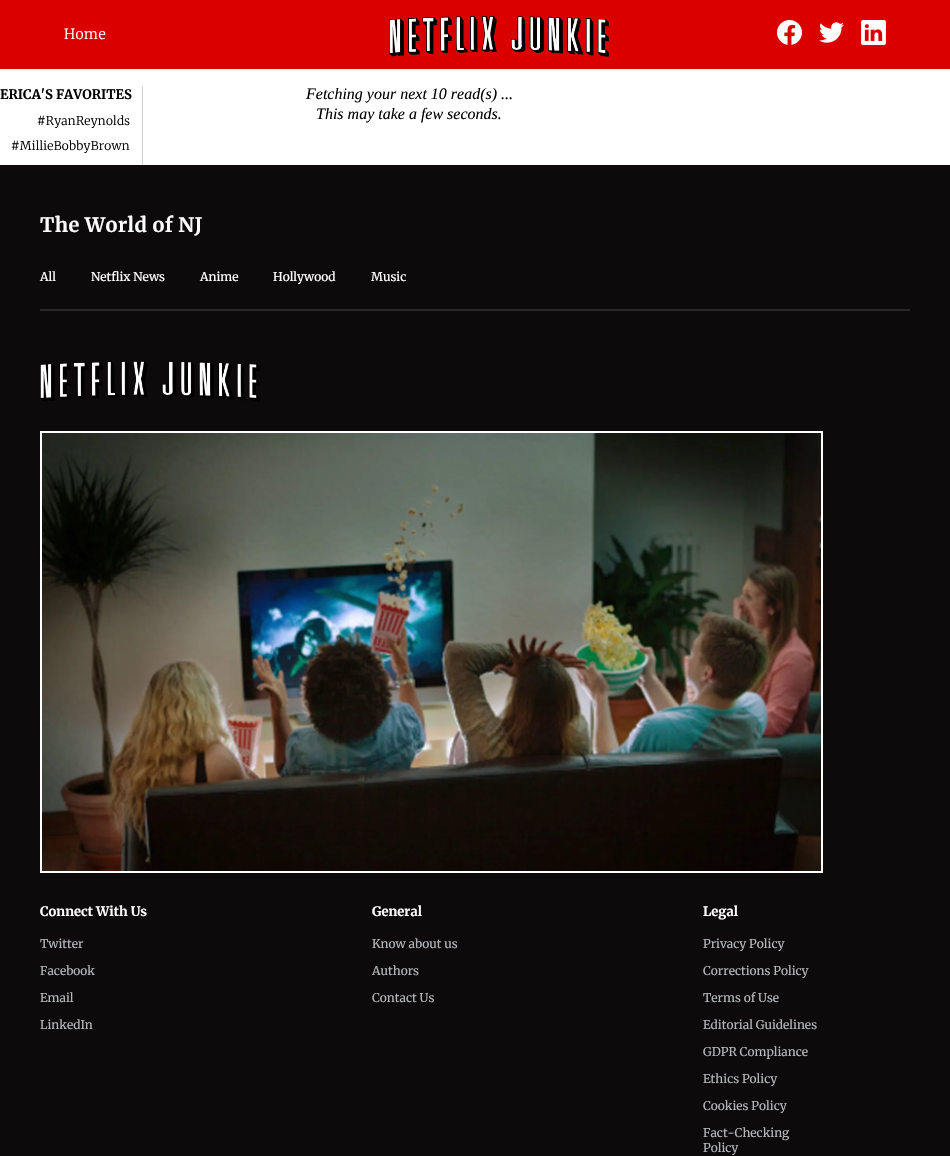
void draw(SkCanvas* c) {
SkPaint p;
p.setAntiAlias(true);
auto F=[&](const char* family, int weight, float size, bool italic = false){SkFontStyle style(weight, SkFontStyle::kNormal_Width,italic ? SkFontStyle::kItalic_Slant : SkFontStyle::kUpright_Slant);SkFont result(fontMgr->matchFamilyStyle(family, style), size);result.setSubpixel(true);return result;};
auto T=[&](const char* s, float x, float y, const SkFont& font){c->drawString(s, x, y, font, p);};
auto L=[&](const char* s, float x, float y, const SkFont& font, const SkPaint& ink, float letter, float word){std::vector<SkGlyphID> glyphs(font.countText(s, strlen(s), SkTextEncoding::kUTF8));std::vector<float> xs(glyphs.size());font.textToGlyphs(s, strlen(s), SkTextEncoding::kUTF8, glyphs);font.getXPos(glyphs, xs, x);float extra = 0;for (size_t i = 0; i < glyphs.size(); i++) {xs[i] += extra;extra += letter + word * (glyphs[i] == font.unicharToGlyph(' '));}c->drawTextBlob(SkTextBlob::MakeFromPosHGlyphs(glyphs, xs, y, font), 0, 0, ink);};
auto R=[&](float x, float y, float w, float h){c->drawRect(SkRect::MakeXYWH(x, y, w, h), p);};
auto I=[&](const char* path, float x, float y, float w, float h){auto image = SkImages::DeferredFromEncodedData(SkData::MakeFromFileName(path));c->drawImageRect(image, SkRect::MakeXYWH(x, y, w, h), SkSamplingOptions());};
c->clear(0xffffffff);
p.setColor(0xffdb0000);
R(0,0,950,69);
p.setColor(0xfff7f7f7);
R(0,69,950,1);
auto f1 = F("Merriweather",300,14);
p.setColor(0xffffffff);
L("Home",64,39,f1,p,.5,0);
I("1.png",389,16,220,41);
I("2.png",777,20,25,25);
I("3.png",819,22,25,21);
I("4.png",861,20,25,25);
p.setColor(0xffd1d1d1);
R(142,86,1,79);
auto f2 = F("Merriweather",700,13);
p.setColor(0xff000000);
T("ERICA'S FAVORITES",0,99,f2);
auto f3 = F("Merriweather",300,12);
L("#RyanReynolds",37,125,f3,p,.25,0);
L("#MillieBobbyBrown",11,150,f3,p,.25,0);
auto f4 = F("Liberation Serif",400,16,true);
T("Fetching your next 10 read(s) ...",306,99,f4);
T("This may take a few seconds.",316,119,f4);
p.setColor(0xff0c0a0a);
R(0,165,950,991);
auto f5 = F("Merriweather",700,20);
p.setColor(0xffffffff);
L("The World of NJ",40,232,f5,p,.4,0);
auto f6 = F("Merriweather",400,12);
T("All",40,281,f6);
T("Netflix News",91,281,f6);
T("Anime",200,281,f6);
T("Hollywood",273,281,f6);
T("Music",371,281,f6);
p.setColor(0xff292929);
R(40,309,870,2);
I("5.png",40,361,220,41);
p.setStroke(true);
p.setStrokeWidth(2);
p.setColor(0xffffffff);
c->drawRect(SkRect::MakeXYWH(41,432,781,440),p);
I("6.png",42,433,779,438);
p.setStroke(false);
T("Connect With Us",40,916,f2);
p.setColor(0xffb4b6ba);
T("Twitter",40,948,f6);
T("Facebook",40,975,f6);
T("Email",40,1002,f6);
T("LinkedIn",40,1029,f6);
p.setColor(0xffffffff);
T("General",372,916,f2);
p.setColor(0xffb4b6ba);
T("Know about us",372,948,f6);
T("Authors",372,975,f6);
T("Contact Us",372,1002,f6);
p.setColor(0xffffffff);
T("Legal",703,916,f2);
p.setColor(0xffb4b6ba);
T("Privacy Policy",703,948,f6);
T("Corrections Policy",703,975,f6);
T("Terms of Use",703,1002,f6);
T("Editorial Guidelines",703,1029,f6);
T("GDPR Compliance",703,1056,f6);
T("Ethics Policy",703,1083,f6);
T("Cookies Policy",703,1110,f6);
T("Fact-Checking",703,1137,f6);
T("Policy",703,1152,f6);
}
